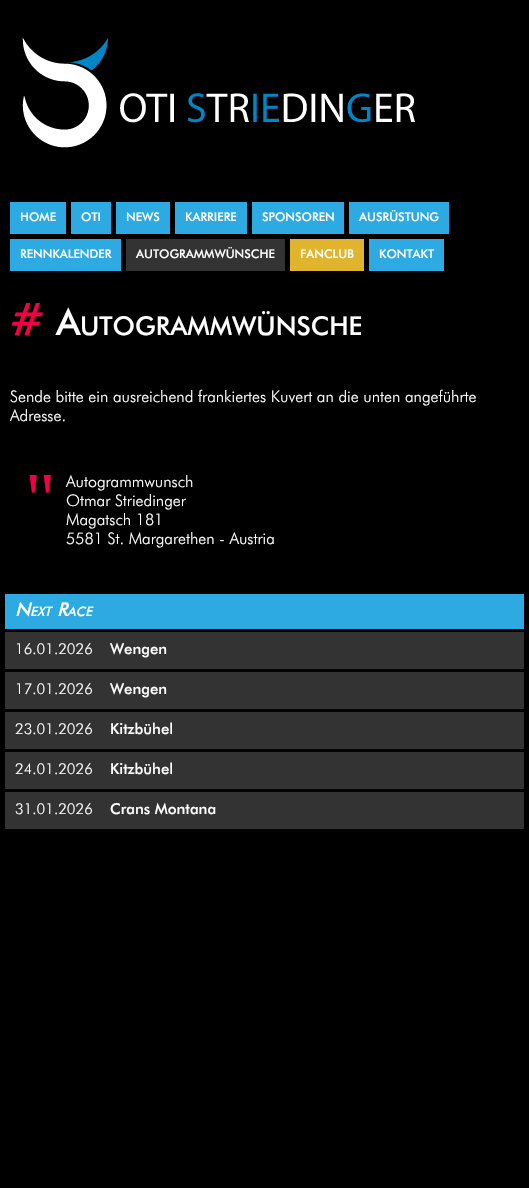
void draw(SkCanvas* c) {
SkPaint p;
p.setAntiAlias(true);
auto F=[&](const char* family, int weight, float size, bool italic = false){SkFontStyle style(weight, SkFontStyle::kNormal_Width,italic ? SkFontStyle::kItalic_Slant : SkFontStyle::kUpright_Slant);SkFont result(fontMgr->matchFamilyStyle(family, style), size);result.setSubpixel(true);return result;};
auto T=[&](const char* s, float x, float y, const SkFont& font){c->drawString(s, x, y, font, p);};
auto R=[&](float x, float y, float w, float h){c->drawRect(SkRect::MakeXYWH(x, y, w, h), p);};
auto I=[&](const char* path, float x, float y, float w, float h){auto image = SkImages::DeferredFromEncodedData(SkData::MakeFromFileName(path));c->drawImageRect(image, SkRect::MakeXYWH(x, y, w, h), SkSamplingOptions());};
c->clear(0xff000000);
I("1.png",22,37,393,111);
p.setColor(0xff2daae1);
R(10,202,56,32);
auto f1 = F("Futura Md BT",500,12);
p.setColor(0xffffffff);
T("HOME",20,221,f1);
p.setColor(0xff2daae1);
R(71,202,40,32);
p.setColor(0xffffffff);
T("OTI",81,221,f1);
p.setColor(0xff2daae1);
R(116,202,54,32);
p.setColor(0xffffffff);
T("NEWS",126,221,f1);
p.setColor(0xff2daae1);
R(175,202,72,32);
p.setColor(0xffffffff);
T("KARRIERE",185,221,f1);
p.setColor(0xff2daae1);
R(252,202,92,32);
p.setColor(0xffffffff);
T("SPONSOREN",262,221,f1);
p.setColor(0xff2daae1);
R(349,202,100,32);
p.setColor(0xffffffff);
T("AUSRÜSTUNG",359,221,f1);
p.setColor(0xff2daae1);
R(10,239,111,32);
p.setColor(0xffffffff);
T("RENNKALENDER",20,258,f1);
p.setColor(0xff333333);
R(126,239,159,32);
p.setColor(0xffffffff);
T("AUTOGRAMMWÜNSCHE",136,258,f1);
p.setColor(0xffe0b42d);
R(290,239,74,32);
p.setColor(0xffffffff);
T("FANCLUB",300,258,f1);
p.setColor(0xff2daae1);
R(369,239,75,32);
p.setColor(0xffffffff);
T("KONTAKT",379,258,f1);
auto f2 = F("Futura Md BT",500,45);
p.setColor(0xfff20041);
T("#",10,335,f2);
auto f3 = F("Futura Md BT",500,37);
p.setColor(0xffffffff);
T("A",56,335,f3);
auto f4 = F("Futura Md BT",500,25.9);
T("UTOGRAMMWÜNSCHE",80,335,f4);
auto f5 = F("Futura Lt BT",300,16);
T("Sende bitte ein ausreichend frankiertes Kuvert an die unten angeführte",10,402,f5);
T("Adresse.",10,421,f5);
auto f6 = F("Liberation Serif",400,75);
p.setColor(0xfff20041);
T("\"",25,524,f6);
p.setColor(0xffffffff);
T("Autogrammwunsch",66,487,f5);
T("Otmar Striedinger",66,506,f5);
T("Magatsch 181",66,525,f5);
T("5581 St. Margarethen - Austria",66,544,f5);
p.setColor(0xff2daae1);
R(5,594,519,35);
auto f7 = F("Futura Md BT",500,19,true);
p.setColor(0xffffffff);
T("N",15,616,f7);
auto f8 = F("Futura Md BT",500,13,true);
T("EXT",30,616,f8);
T("R",57,616,f7);
T("ACE",67,616,f8);
p.setColor(0xff333333);
R(5,632,519,37);
auto f9 = F("Futura Lt BT",300,15);
p.setColor(0xffffffff);
T("16.01.2026",15,654,f9);
auto f10 = F("Futura Md BT",500,15);
T("Wengen",110,654,f10);
p.setColor(0xff333333);
R(5,672,519,37);
p.setColor(0xffffffff);
T("17.01.2026",15,694,f9);
T("Wengen",110,694,f10);
p.setColor(0xff333333);
R(5,712,519,37);
p.setColor(0xffffffff);
T("23.01.2026",15,734,f9);
T("Kitzbühel",110,734,f10);
p.setColor(0xff333333);
R(5,752,519,37);
p.setColor(0xffffffff);
T("24.01.2026",15,774,f9);
T("Kitzbühel",110,774,f10);
p.setColor(0xff333333);
R(5,792,519,37);
p.setColor(0xffffffff);
T("31.01.2026",15,814,f9);
T("Crans Montana",110,814,f10);
}
